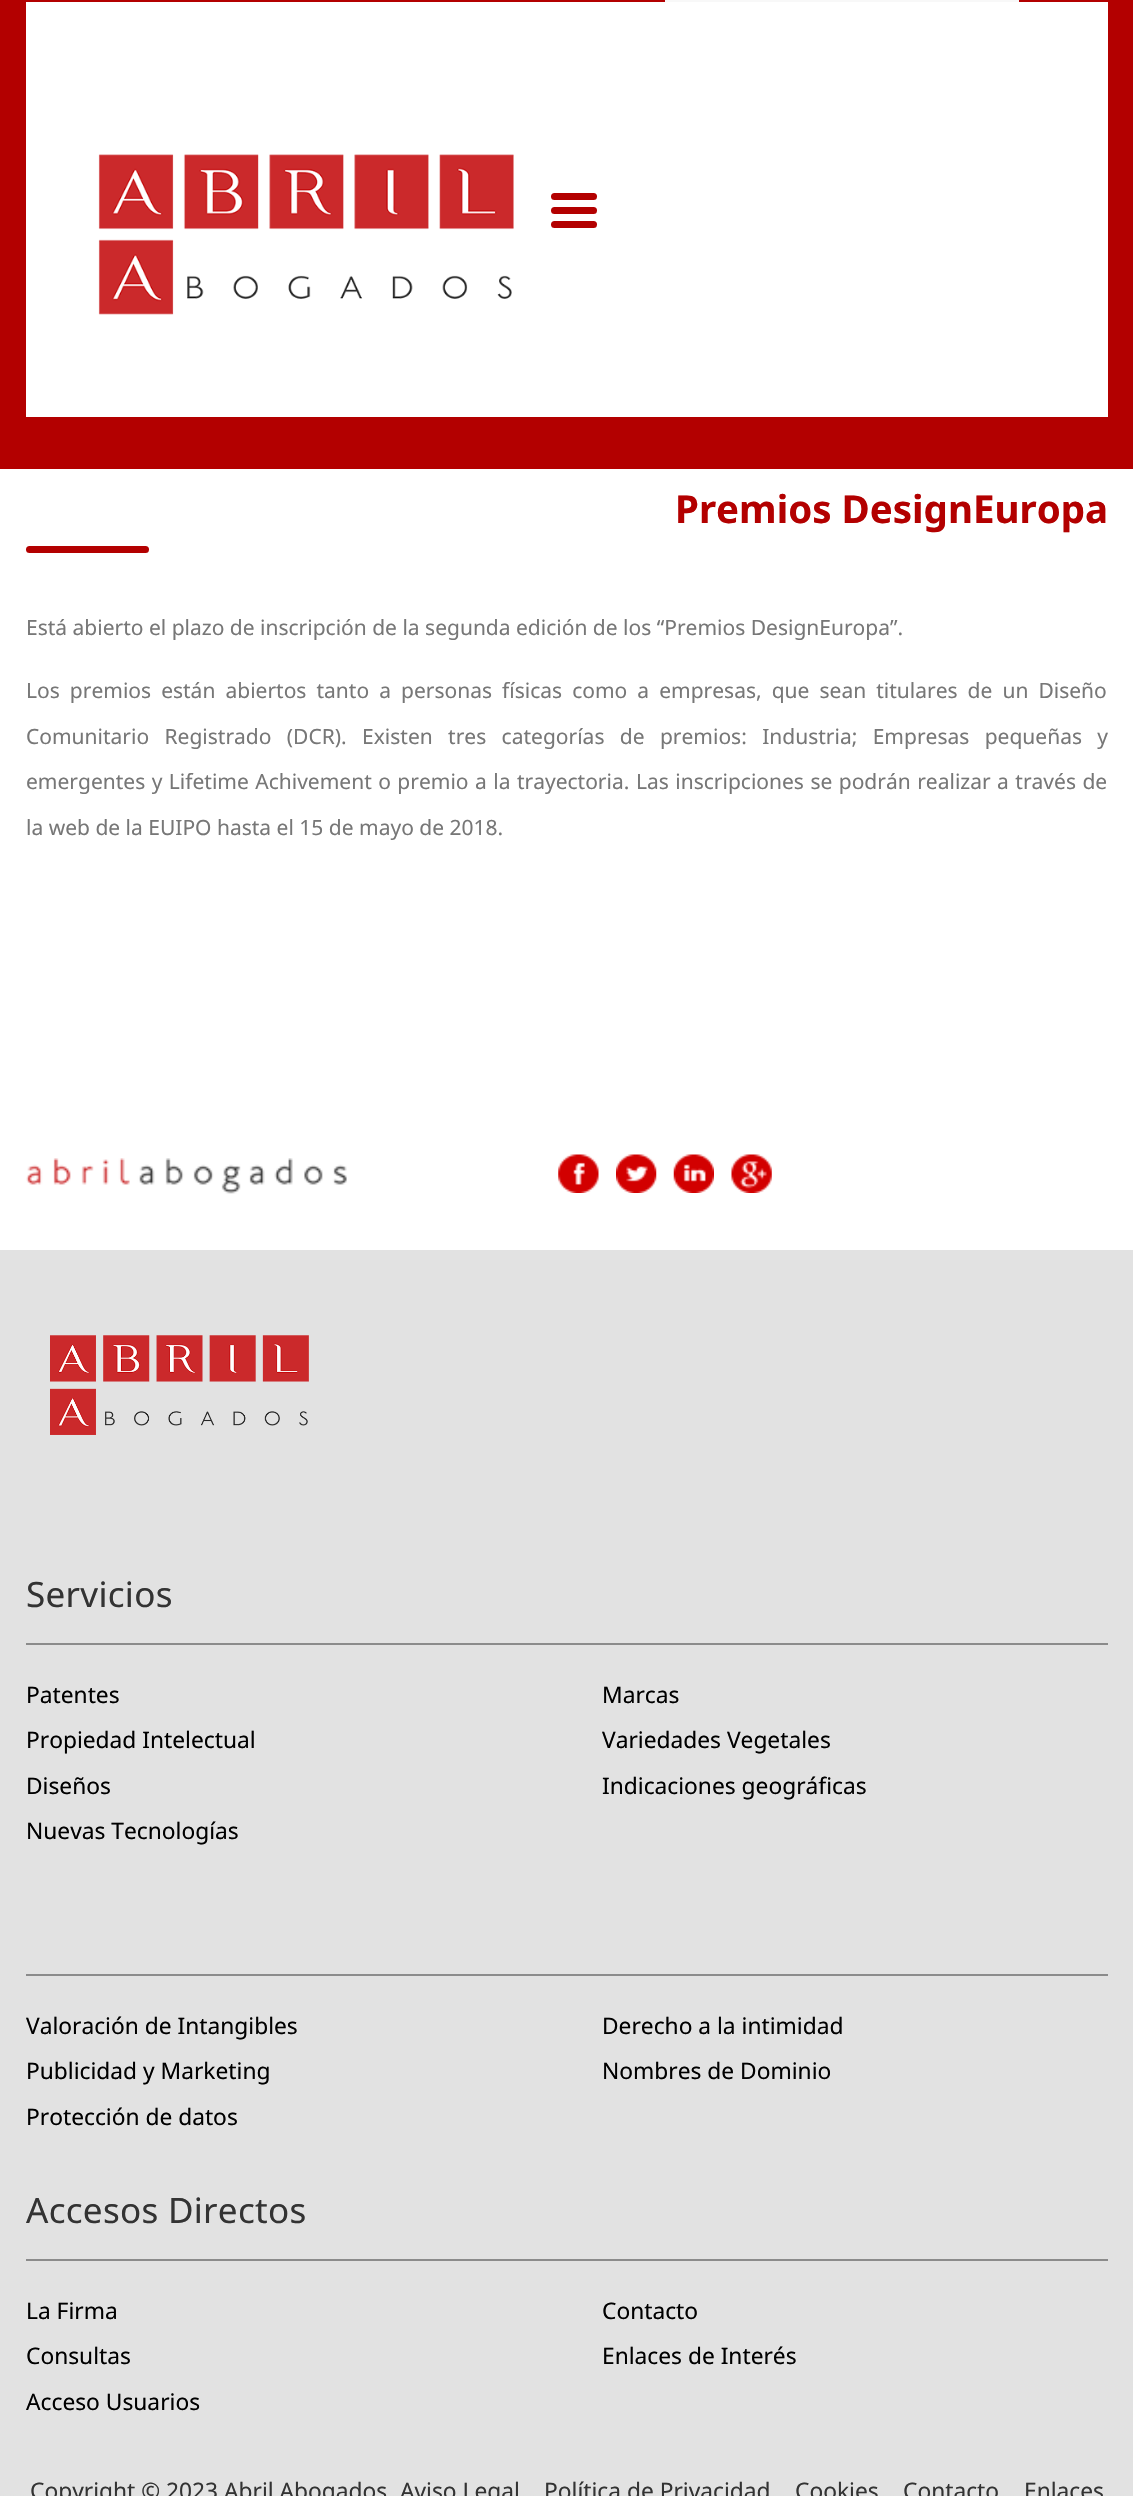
void draw(SkCanvas* c) {
SkPaint p;
p.setAntiAlias(true);
auto F=[&](const char* family, int weight, float size, bool italic = false){SkFontStyle style(weight, SkFontStyle::kNormal_Width,italic ? SkFontStyle::kItalic_Slant : SkFontStyle::kUpright_Slant);SkFont result(fontMgr->matchFamilyStyle(family, style), size);result.setSubpixel(true);return result;};
auto T=[&](const char* s, float x, float y, const SkFont& font){c->drawString(s, x, y, font, p);};
auto L=[&](const char* s, float x, float y, const SkFont& font, const SkPaint& ink, float letter, float word){std::vector<SkGlyphID> glyphs(font.countText(s, strlen(s), SkTextEncoding::kUTF8));std::vector<float> xs(glyphs.size());font.textToGlyphs(s, strlen(s), SkTextEncoding::kUTF8, glyphs);font.getXPos(glyphs, xs, x);float extra = 0;for (size_t i = 0; i < glyphs.size(); i++) {xs[i] += extra;extra += letter + word * (glyphs[i] == font.unicharToGlyph(' '));}c->drawTextBlob(SkTextBlob::MakeFromPosHGlyphs(glyphs, xs, y, font), 0, 0, ink);};
auto R=[&](float x, float y, float w, float h){c->drawRect(SkRect::MakeXYWH(x, y, w, h), p);};
auto Q=[&](float x, float y, float w, float h, float radius){c->drawRoundRect(SkRect::MakeXYWH(x, y, w, h), radius, radius, p);};
auto I=[&](const char* path, float x, float y, float w, float h){auto image = SkImages::DeferredFromEncodedData(SkData::MakeFromFileName(path));c->drawImageRect(image, SkRect::MakeXYWH(x, y, w, h), SkSamplingOptions());};
c->clear(0xffffffff);
p.setColor(0xffb30000);
R(0,0,1133,469);
p.setColor(0xfff8f8f8);
R(665,0,354,2);
p.setColor(0xffffffff);
R(26,2,1082,415);
I("1.png",98,154,416,161);
p.setColor(0xffb30000);
Q(551,207,46,7,3.5);
Q(551,193,46,7,3.5);
Q(551,221,46,7,3.5);
auto f1 = F("Noto Sans",700,38.5);
T("Premios DesignEuropa",675,523,f1);
Q(26,546,123,7,3.5);
auto f2 = F("Noto Sans",400,21);
p.setColor(0xff777777);
T("Está abierto el plazo de inscripción de la segunda edición de los “Premios DesignEuropa”.",26,635,f2);
L("Los premios están abiertos tanto a personas físicas como a empresas, que sean titulares de un Diseño",26,698,f2,p,0,4.6);
L("Comunitario Registrado (DCR). Existen tres categorías de premios: Industria; Empresas pequeñas y",26,744,f2,p,0,9.9);
L("emergentes y Lifetime Achivement o premio a la trayectoria.",26,789,f2,p,0,1);
L("Las inscripciones se podrán realizar a través de",636,789,f2,p,0,1);
T("la web de la EUIPO hasta el 15 de mayo de 2018.",26,835,f2);
I("2.png",26,1158,321,36);
I("3.png",558,1154,41,39);
I("4.png",616,1154,41,39);
I("5.png",673,1154,41,39);
I("6.png",731,1154,41,39);
p.setColor(0xffe2e2e2);
R(0,1250,1133,1246);
I("7.png",50,1335,259,100);
p.setColor(0xff8b8b8b);
R(26,1643,1082,2);
auto f3 = F("Noto Sans",400,35);
p.setColor(0xff333333);
L("Servicios",26,1607,f3,p,.3,0);
auto f4 = F("Noto Sans",400,22.75);
p.setColor(0xff000000);
T("Patentes",26,1703,f4);
T("Marcas",602,1703,f4);
T("Propiedad Intelectual",26,1748,f4);
T("Variedades Vegetales",602,1748,f4);
T("Diseños",26,1794,f4);
T("Indicaciones geográficas",602,1794,f4);
T("Nuevas Tecnologías",26,1839,f4);
p.setColor(0xff8b8b8b);
R(26,1974,1082,2);
p.setColor(0xff000000);
T("Valoración de Intangibles",26,2034,f4);
T("Derecho a la intimidad",602,2034,f4);
T("Publicidad y Marketing",26,2079,f4);
T("Nombres de Dominio",602,2079,f4);
T("Protección de datos",26,2125,f4);
p.setColor(0xff8b8b8b);
R(26,2259,1082,2);
p.setColor(0xff333333);
L("Accesos Directos",26,2223,f3,p,.3,0);
p.setColor(0xff000000);
T("La Firma",26,2319,f4);
T("Contacto",602,2319,f4);
T("Consultas",26,2364,f4);
T("Enlaces de Interés",602,2364,f4);
T("Acceso Usuarios",26,2410,f4);
p.setColor(0xff333333);
T("Copyright © 2023 Abril Abogados",30,2499,f4);
T("Aviso Legal",400,2499,f4);
T("Política de Privacidad",544,2499,f4);
T("Cookies",795,2499,f4);
T("Contacto",903,2499,f4);
T("Enlaces",1024,2499,f4);
}
